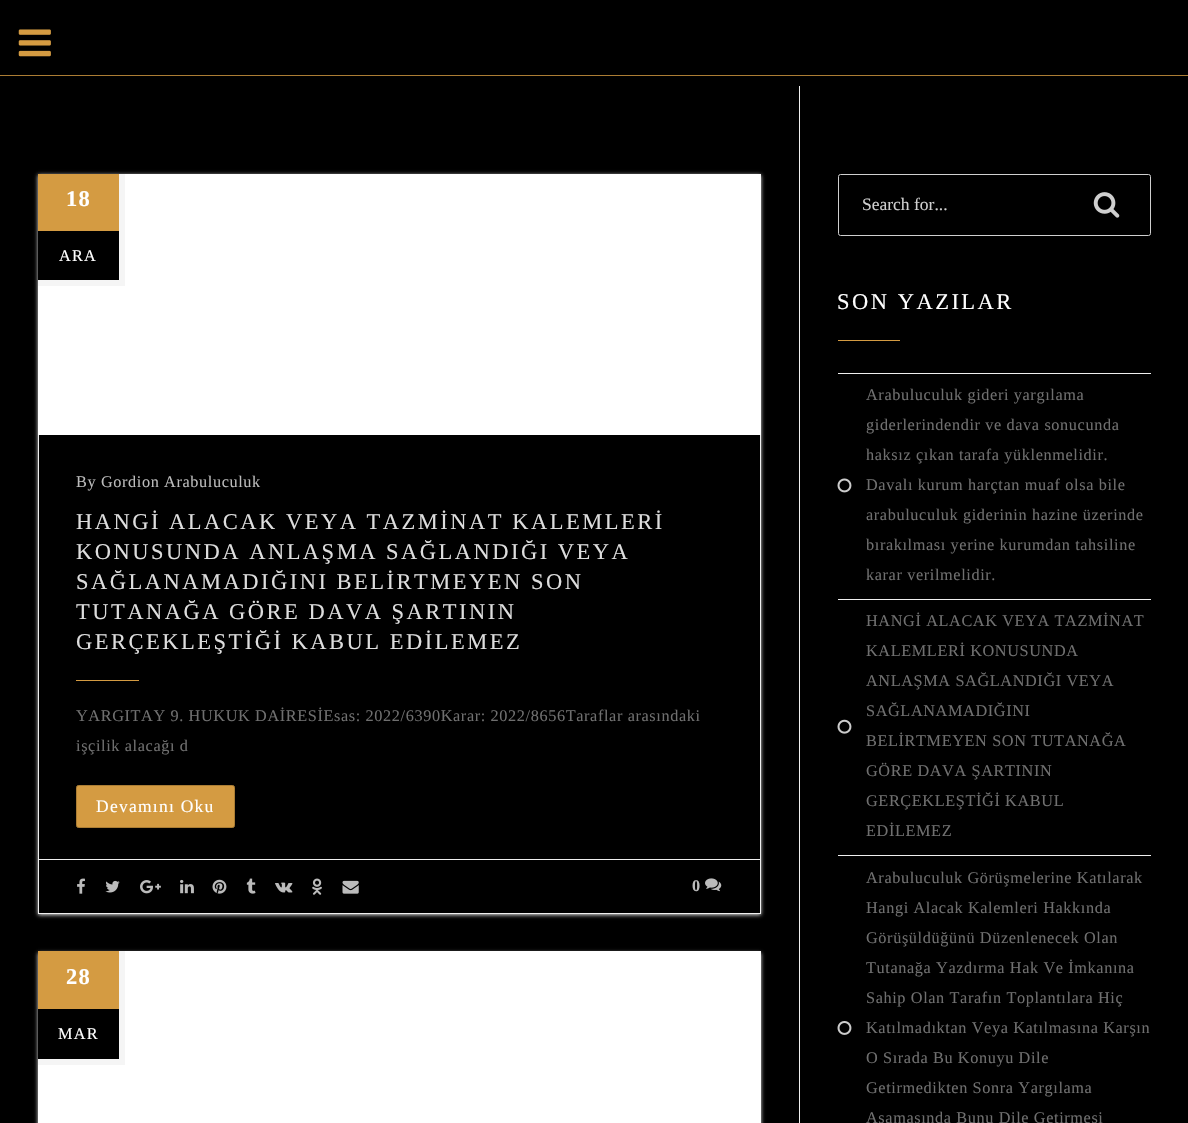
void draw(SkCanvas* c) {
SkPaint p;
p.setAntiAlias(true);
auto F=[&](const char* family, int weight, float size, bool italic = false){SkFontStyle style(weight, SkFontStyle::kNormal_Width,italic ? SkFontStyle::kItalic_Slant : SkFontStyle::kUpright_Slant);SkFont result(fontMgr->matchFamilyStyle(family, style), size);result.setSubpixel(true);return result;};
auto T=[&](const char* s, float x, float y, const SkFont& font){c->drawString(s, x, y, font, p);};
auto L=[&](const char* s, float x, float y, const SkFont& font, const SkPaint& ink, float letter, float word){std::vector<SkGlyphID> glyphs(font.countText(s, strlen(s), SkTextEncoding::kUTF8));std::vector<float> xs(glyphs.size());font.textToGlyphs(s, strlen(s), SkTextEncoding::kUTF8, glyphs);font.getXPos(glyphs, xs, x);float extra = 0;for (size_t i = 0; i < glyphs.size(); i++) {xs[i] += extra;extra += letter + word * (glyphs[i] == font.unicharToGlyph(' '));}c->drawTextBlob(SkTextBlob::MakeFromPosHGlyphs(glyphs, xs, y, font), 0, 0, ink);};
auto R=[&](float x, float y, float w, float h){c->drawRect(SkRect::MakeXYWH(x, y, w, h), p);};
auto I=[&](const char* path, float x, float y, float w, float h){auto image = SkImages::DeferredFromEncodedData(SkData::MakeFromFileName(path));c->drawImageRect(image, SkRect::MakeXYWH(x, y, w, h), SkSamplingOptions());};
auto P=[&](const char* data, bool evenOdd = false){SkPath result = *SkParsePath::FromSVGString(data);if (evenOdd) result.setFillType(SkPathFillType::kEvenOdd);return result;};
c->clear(0xff000000);
p.setColor(0xffab7d34);
R(0,75,1188,1);
I("1.png",18,29,33,28);
c->save();
c->clipPath(P("M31 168h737v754h-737zm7 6h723v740h-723z",true),true);
p.setColor(0xffe0e0e0);
p.setMaskFilter(SkMaskFilter::MakeBlur(kNormal_SkBlurStyle, 2));
c->drawRect(SkRect::MakeXYWH(38,175,723,740),p);
p.setMaskFilter(nullptr);
c->restore();
p.setColor(0xffffffff);
R(38,174,723,261);
p.setColor(0xfff5f5f5);
R(119,174,6,112);
R(38,280,87,6);
p.setColor(0xffd49b42);
R(38,174,81,57);
auto f1 = F("Liberation Serif",700,22.5);
p.setColor(0xffffffff);
L("18",66,206,f1,p,1.25,0);
p.setColor(0xff000000);
R(38,231,81,49);
auto f2 = F("Liberation Serif",400,16.25);
p.setColor(0xffffffff);
L("ARA",59,261,f2,p,1.25,0);
p.setColor(0xffefefef);
R(760,435,1,424);
R(38,435,1,424);
p.setColor(0xffbbbbbb);
L("By Gordion Arabuluculuk",76,487,f2,p,.62,0);
auto f3 = F("Liberation Serif",400,22.5);
p.setColor(0xffdddddd);
L("HANGİ ALACAK VEYA TAZMİNAT KALEMLERİ",76,529,f3,p,2.5,0);
L("KONUSUNDA ANLAŞMA SAĞLANDIĞI VEYA",76,559,f3,p,2.5,0);
L("SAĞLANAMADIĞINI BELİRTMEYEN SON",76,589,f3,p,2.5,0);
L("TUTANAĞA GÖRE DAVA ŞARTININ",76,619,f3,p,2.5,0);
L("GERÇEKLEŞTİĞİ KABUL EDİLEMEZ",76,649,f3,p,2.5,0);
p.setColor(0xffd49b42);
R(76,680,63,1);
p.setColor(0xff6f6f6f);
L("YARGITAY 9. HUKUK DAİRESİEsas: 2022/6390Karar: 2022/8656Taraflar arasındaki",76,721,f2,p,.62,0);
L("işçilik alacağı d",76,751,f2,p,.62,0);
p.setColor(0xffd49b42);
c->drawRoundRect(SkRect::MakeXYWH(76.5,785.5,158,42),2,2,p);
p.setStroke(true);
p.setStrokeWidth(1);
p.setColor(0xffab7d34);
c->drawRoundRect(SkRect::MakeXYWH(76.5,785.5,158,42),2,2,p);
auto f4 = F("Liberation Serif",400,17.5);
p.setStroke(false);
p.setColor(0xffffffff);
L("Devamını Oku",96,812,f4,p,1.25,0);
p.setStroke(true);
p.setColor(0xffefefef);
c->drawRect(SkRect::MakeXYWH(38.5,859.5,722,54),p);
I("2.png",77,878,8,16);
I("3.png",105,880,15,13);
I("4.png",140,880,21,14);
I("5.png",180,879,14,15);
I("6.png",212,879,15,15);
I("7.png",246,878,10,16);
I("8.png",275,882,18,11);
I("9.png",312,878,10,17);
I("10.png",342,880,17,14);
auto f5 = F("Liberation Serif",700,16.25);
p.setStroke(false);
p.setColor(0xffbbbbbb);
L("0",692,891,f5,p,.62,0);
I("11.png",705,878,17,14);
p.setColor(0xffe0e0e0);
p.setMaskFilter(SkMaskFilter::MakeBlur(kNormal_SkBlurStyle, 2));
c->drawRect(SkRect::MakeXYWH(38,953,723,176),p);
p.setMaskFilter(nullptr);
p.setColor(0xffffffff);
R(38,951,723,172);
p.setColor(0xfff5f5f5);
R(119,951,6,114);
R(38,1059,87,6);
p.setColor(0xffd49b42);
R(38,951,81,58);
p.setColor(0xffffffff);
L("28",66,984,f1,p,1.25,0);
p.setColor(0xff000000);
R(38,1009,81,50);
p.setColor(0xffffffff);
L("MAR",58,1039,f2,p,1.25,0);
p.setColor(0xffefefef);
R(799,86,1,1037);
p.setStroke(true);
p.setColor(0xffcfcfcf);
c->drawRoundRect(SkRect::MakeXYWH(838.5,174.5,312,61),2,2,p);
p.setStroke(false);
T("Search for...",862,210,f4);
I("12.png",1093,192,27,26);
p.setColor(0xffffffff);
L("SON YAZILAR",837,309,f3,p,2.5,0);
p.setColor(0xffd49b42);
R(838,340,62,1);
p.setColor(0xffefefef);
R(838,373,313,1);
R(838,599,313,1);
p.setColor(0xff6f6f6f);
L("Arabuluculuk gideri yargılama",866,400,f2,p,.62,0);
L("giderlerindendir ve dava sonucunda",866,430,f2,p,.62,0);
L("haksız çıkan tarafa yüklenmelidir.",866,460,f2,p,.62,0);
I("13.png",837,478,15,15);
L("Davalı kurum harçtan muaf olsa bile",866,490,f2,p,.62,0);
L("arabuluculuk giderinin hazine üzerinde",866,520,f2,p,.62,0);
L("bırakılması yerine kurumdan tahsiline",866,550,f2,p,.62,0);
L("karar verilmelidir.",866,580,f2,p,.62,0);
p.setColor(0xffefefef);
R(838,855,313,1);
p.setColor(0xff6f6f6f);
L("HANGİ ALACAK VEYA TAZMİNAT",866,626,f2,p,.62,0);
L("KALEMLERİ KONUSUNDA",866,656,f2,p,.62,0);
L("ANLAŞMA SAĞLANDIĞI VEYA",866,686,f2,p,.62,0);
L("SAĞLANAMADIĞINI",866,716,f2,p,.62,0);
I("14.png",837,719,15,15);
L("BELİRTMEYEN SON TUTANAĞA",866,746,f2,p,.62,0);
L("GÖRE DAVA ŞARTININ",866,776,f2,p,.62,0);
L("GERÇEKLEŞTİĞİ KABUL",866,806,f2,p,.62,0);
L("EDİLEMEZ",866,836,f2,p,.62,0);
L("Arabuluculuk Görüşmelerine Katılarak",866,883,f2,p,.62,0);
L("Hangi Alacak Kalemleri Hakkında",866,913,f2,p,.62,0);
L("Görüşüldüğünü Düzenlenecek Olan",866,943,f2,p,.62,0);
L("Tutanağa Yazdırma Hak Ve İmkanına",866,973,f2,p,.62,0);
L("Sahip Olan Tarafın Toplantılara Hiç",866,1003,f2,p,.62,0);
I("15.png",837,1021,15,14);
L("Katılmadıktan Veya Katılmasına Karşın",866,1033,f2,p,.62,0);
L("O Sırada Bu Konuyu Dile",866,1063,f2,p,.62,0);
L("Getirmedikten Sonra Yargılama",866,1093,f2,p,.62,0);
L("Aşamasında Bunu Dile Getirmesi",866,1123,f2,p,.62,0);
}
